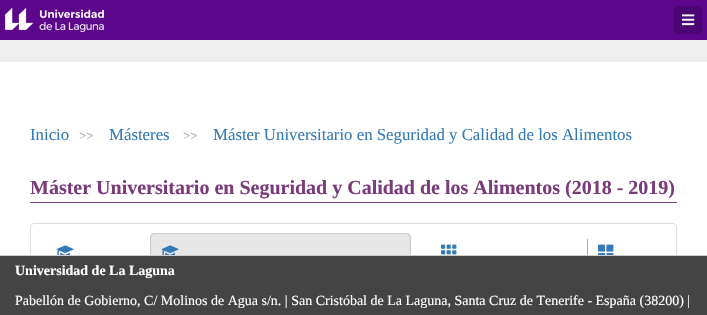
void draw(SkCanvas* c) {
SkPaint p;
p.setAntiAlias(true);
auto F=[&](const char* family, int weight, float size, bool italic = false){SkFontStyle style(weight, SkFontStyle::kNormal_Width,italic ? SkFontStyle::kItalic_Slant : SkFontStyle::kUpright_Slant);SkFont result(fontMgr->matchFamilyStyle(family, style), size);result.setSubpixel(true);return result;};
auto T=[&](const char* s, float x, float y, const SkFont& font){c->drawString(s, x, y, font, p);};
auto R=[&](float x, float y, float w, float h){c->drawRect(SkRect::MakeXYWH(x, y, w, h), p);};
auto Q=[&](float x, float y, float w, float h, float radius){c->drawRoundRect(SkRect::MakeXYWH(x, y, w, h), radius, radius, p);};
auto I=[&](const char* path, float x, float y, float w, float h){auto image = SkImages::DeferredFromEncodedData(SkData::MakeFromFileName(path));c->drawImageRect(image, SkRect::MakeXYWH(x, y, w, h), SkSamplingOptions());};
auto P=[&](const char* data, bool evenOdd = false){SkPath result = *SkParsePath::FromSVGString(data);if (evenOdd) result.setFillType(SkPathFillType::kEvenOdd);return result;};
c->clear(0xffffffff);
p.setColor(0xff5c068c);
R(0,0,707,40);
I("1.png",5,8,99,24);
p.setColor(0xff4c0574);
Q(674,6,28,28,4);
I("2.png",682,14,13,12);
p.setColor(0xffeeeeee);
R(0,40,707,22);
auto f1 = F("Liberation Serif",400,16.8);
p.setColor(0xff337ab7);
T("Inicio",30,140,f1);
auto f2 = F("Liberation Serif",400,13);
p.setColor(0xff999999);
T(">>",79,140,f2);
p.setColor(0xff337ab7);
T("Másteres",109,140,f1);
p.setColor(0xff999999);
T(">>",183,140,f2);
p.setColor(0xff337ab7);
T("Máster Universitario en Seguridad y Calidad de los Alimentos",213,140,f1);
p.setColor(0xff7a3b7a);
R(30,202,647,1);
auto f3 = F("Liberation Serif",700,20);
T("Máster Universitario en Seguridad y Calidad de los Alimentos (2018 - 2019)",30,194,f3);
p.setStroke(true);
p.setStrokeWidth(1);
p.setColor(0xffdddddd);
c->drawRoundRect(SkRect::MakeXYWH(30.5,223.5,646,61),3.5,3.5,p);
I("3.png",56,245,18,10);
p.setStroke(false);
p.setColor(0xffe6e6e6);
c->drawPath(P("M155 233h23v39h-23c-3 0-5-2-5-5v-29c0-3 2-5 5-5z"),p);
p.setColor(0xffcccccc);
c->drawPath(P("M155 233h23v39h-23c-3 0-5-2-5-5v-29c0-3 2-5 5-5zm0 1h23v37h-23c-2 0-4-2-4-4v-29c0-2 2-4 4-4z",true),p);
p.setColor(0xffe6e6e6);
c->drawPath(P("M178 233h228c3 0 5 2 5 5v31c0 3-2 5-5 5h-228z"),p);
p.setColor(0xffcccccc);
c->drawPath(P("M178 233h228c3 0 5 2 5 5v31c0 3-2 5-5 5h-228zm0 1h228c2 0 4 2 4 4v31c0 2-2 4-4 4h-228z",true),p);
I("4.png",161,245,18,10);
I("5.png",441,244,16,11);
p.setColor(0xffaaaaaa);
R(587,239,1,16);
I("6.png",598,244,16,11);
p.setColor(0xff444444);
R(0,256,707,59);
p.setColor(0xffcccccc);
R(0,255,707,1);
auto f4 = F("Liberation Serif",700,14);
p.setColor(0xffffffff);
T("Universidad de La Laguna",15,275,f4);
auto f5 = F("Liberation Serif",400,14);
T("Pabellón de Gobierno, C/ Molinos de Agua s/n. | San Cristóbal de La Laguna, Santa Cruz de Tenerife - España (38200) |",15,305,f5);
}
